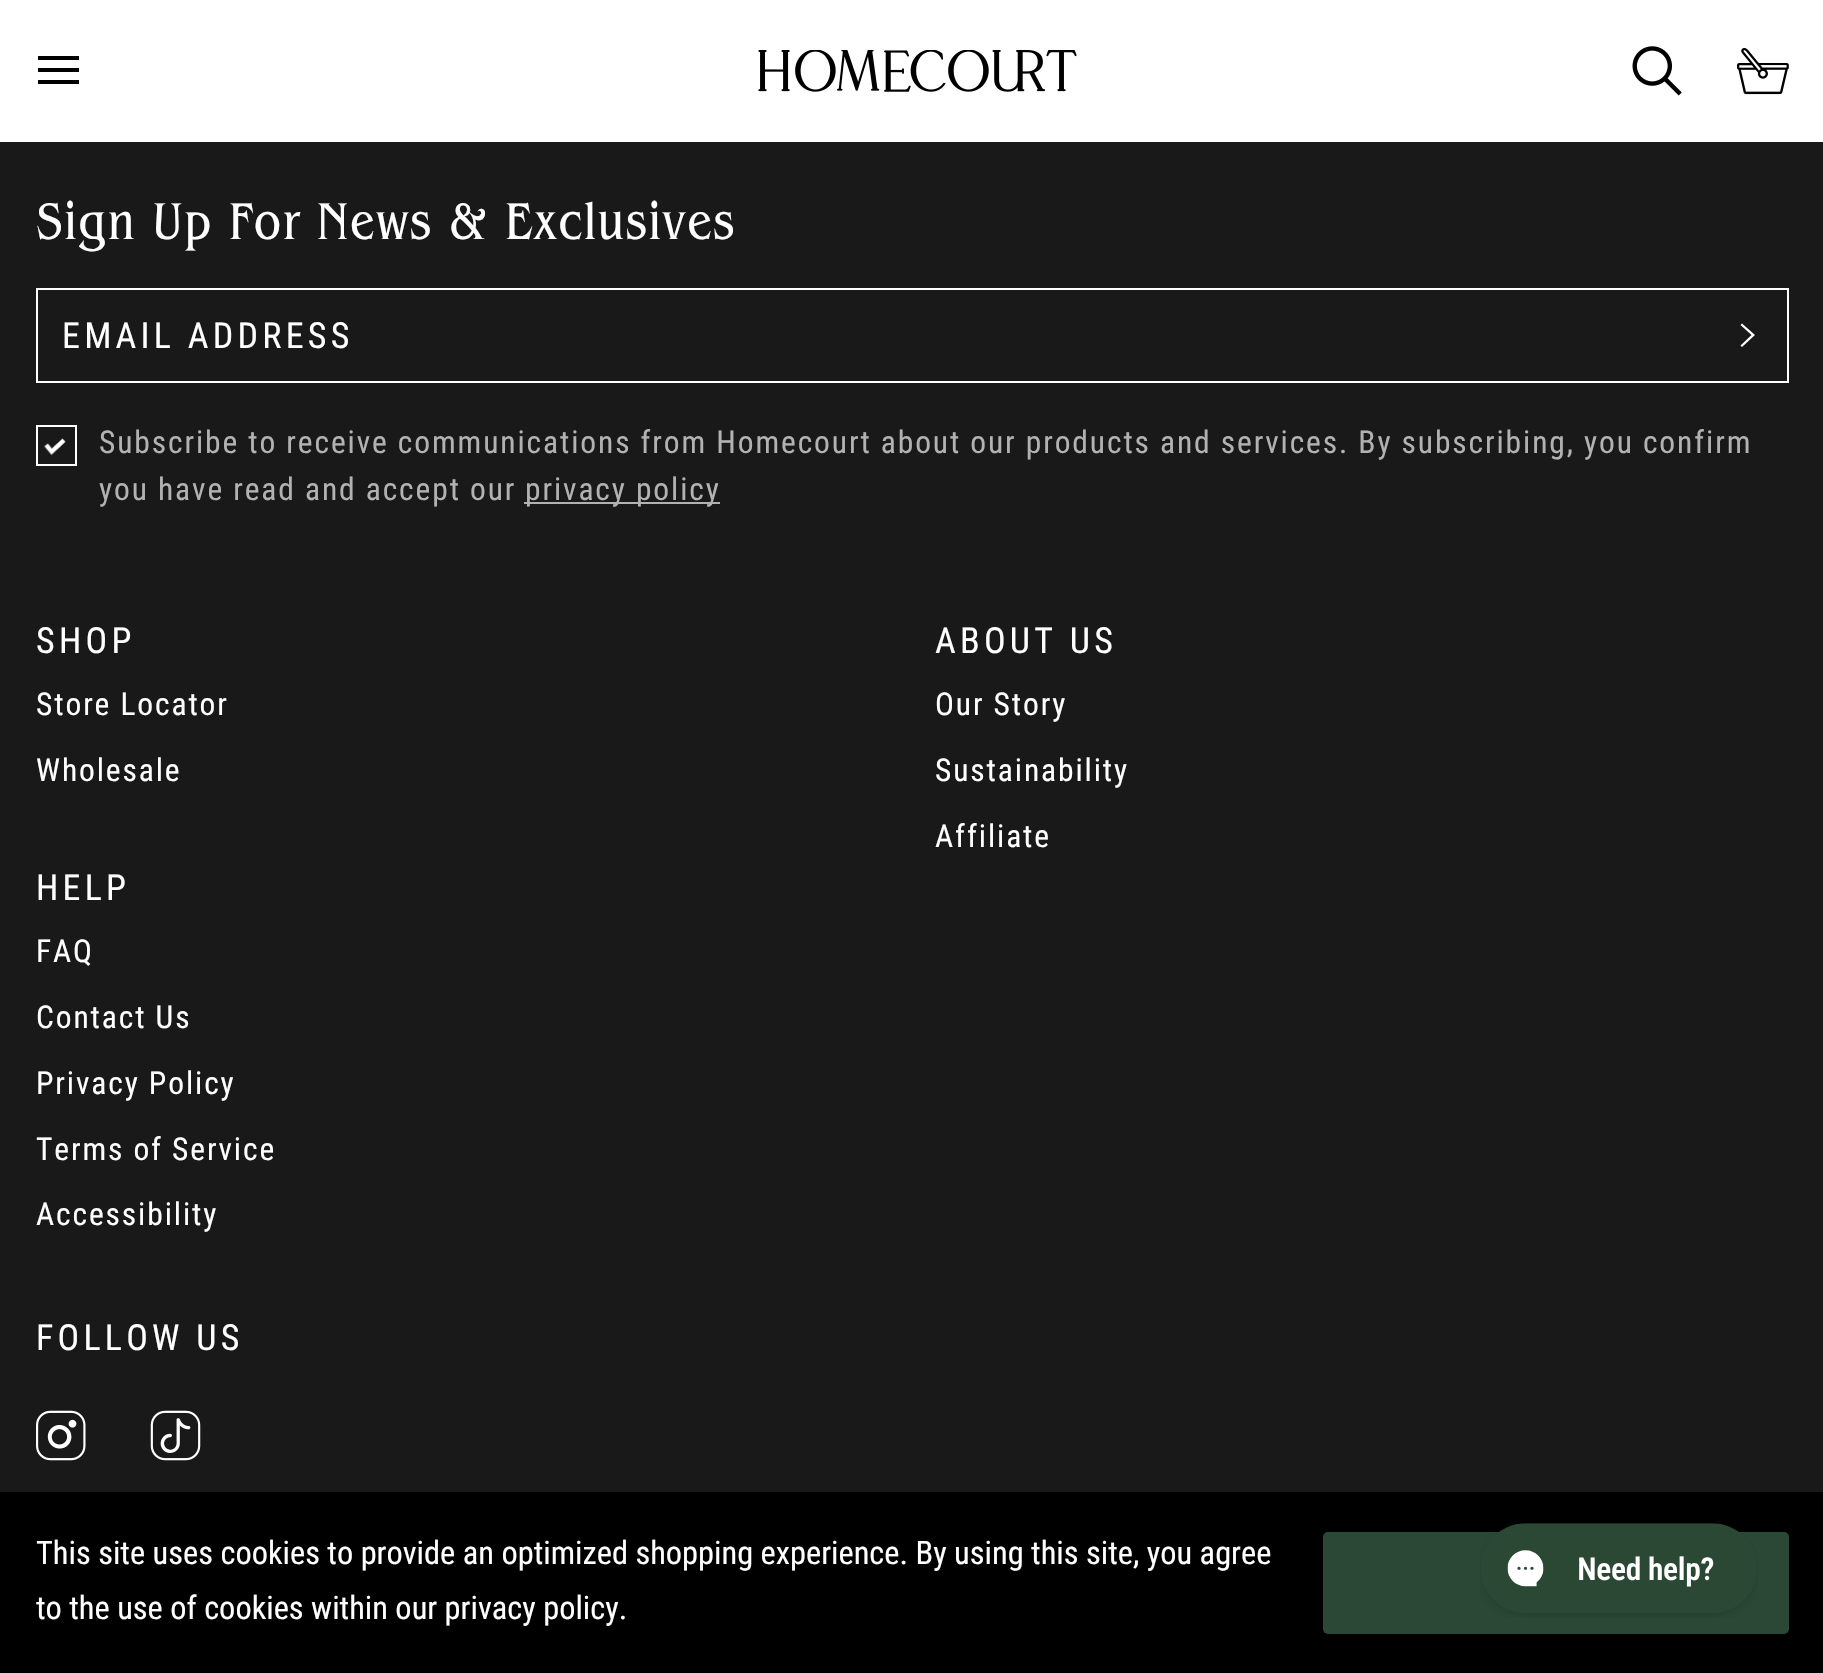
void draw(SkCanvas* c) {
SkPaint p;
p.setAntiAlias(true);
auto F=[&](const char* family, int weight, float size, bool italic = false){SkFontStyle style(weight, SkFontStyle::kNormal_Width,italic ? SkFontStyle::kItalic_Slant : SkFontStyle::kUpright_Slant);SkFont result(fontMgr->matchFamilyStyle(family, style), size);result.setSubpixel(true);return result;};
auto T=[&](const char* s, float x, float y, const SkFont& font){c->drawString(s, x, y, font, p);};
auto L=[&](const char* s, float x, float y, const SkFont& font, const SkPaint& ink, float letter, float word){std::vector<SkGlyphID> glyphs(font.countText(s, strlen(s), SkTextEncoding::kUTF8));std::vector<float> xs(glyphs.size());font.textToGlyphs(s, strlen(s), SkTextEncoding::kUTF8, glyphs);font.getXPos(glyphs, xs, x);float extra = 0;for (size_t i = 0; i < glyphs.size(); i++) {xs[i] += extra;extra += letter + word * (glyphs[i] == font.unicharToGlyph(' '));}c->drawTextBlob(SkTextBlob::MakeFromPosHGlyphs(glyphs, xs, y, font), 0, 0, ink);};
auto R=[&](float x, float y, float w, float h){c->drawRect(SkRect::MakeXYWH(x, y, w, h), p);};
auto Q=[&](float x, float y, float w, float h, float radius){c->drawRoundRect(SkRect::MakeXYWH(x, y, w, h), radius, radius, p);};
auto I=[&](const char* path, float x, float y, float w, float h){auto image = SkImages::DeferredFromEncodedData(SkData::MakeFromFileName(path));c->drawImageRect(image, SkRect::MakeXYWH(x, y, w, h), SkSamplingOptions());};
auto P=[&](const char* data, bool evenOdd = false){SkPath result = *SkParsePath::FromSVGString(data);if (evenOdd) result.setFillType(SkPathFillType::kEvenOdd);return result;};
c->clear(0xff191919);
p.setColor(0xffffffff);
R(0,0,1823,142);
p.setColor(0xff000000);
c->drawPath(P("M38 68h41v4h-41zm0-12h41v4h-41zm0 24h41v4h-41z"),p);
I("1.png",758,50,319,42);
I("2.png",1632,46,50,50);
I("3.png",1737,47,52,48);
auto f1 = F("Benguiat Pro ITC",400,54);
p.setColor(0xffffffff);
L("Sign Up For News & Exclusives",36,239,f1,p,1.1,0);
p.setStroke(true);
p.setStrokeWidth(2);
c->drawRect(SkRect::MakeXYWH(37,289,1751,93),p);
auto f2 = F("Roboto Condensed",400,36);
p.setStroke(false);
L("EMAIL ADDRESS",62,348,f2,p,4.25,0);
c->drawPath(P("M1740.5 325l1.5-1.5l13 11.5l-13 12l-1.5-1.5l11-10.5z"),p);
I("4.png",44,438,22,18);
p.setStroke(true);
c->drawRect(SkRect::MakeXYWH(37,426,39,39),p);
auto f3 = F("Roboto Condensed",400,31.5);
p.setStroke(false);
p.setColor(0xffb2b2b2);
L("Subscribe to receive communications from Homecourt about our products and services. By subscribing, you confirm",99,453,f3,p,1.89,0);
L("you have read and accept our",99,500,f3,p,1.89,0);
R(524,502,196,2);
L("privacy policy",525,500,f3,p,1.89,0);
p.setColor(0xffffffff);
L("SHOP",36,653,f2,p,4.25,0);
L("Store Locator",36,715,f3,p,1.89,0);
L("Wholesale",36,781,f3,p,1.89,0);
L("ABOUT US",935,653,f2,p,4.25,0);
L("Our Story",935,715,f3,p,1.89,0);
L("Sustainability",935,781,f3,p,1.89,0);
L("Affiliate",935,847,f3,p,1.89,0);
L("HELP",36,900,f2,p,4.25,0);
L("FAQ",36,962,f3,p,1.89,0);
L("Contact Us",36,1028,f3,p,1.89,0);
L("Privacy Policy",36,1094,f3,p,1.89,0);
L("Terms of Service",36,1160,f3,p,1.89,0);
L("Accessibility",36,1225,f3,p,1.89,0);
L("FOLLOW US",36,1350,f2,p,4.25,0);
I("5.png",36,1410,50,51);
I("6.png",150,1410,51,51);
p.setColor(0xff000000);
R(0,1492,1823,181);
auto f4 = F("Roboto Condensed",400,32.4);
p.setColor(0xffffffff);
T("This site uses cookies to provide an optimized shopping experience. By using this site, you agree",36,1564,f4);
T("to the use of cookies within our privacy policy.",36,1619,f4);
p.setColor(0xff2a4835);
Q(1323,1532,466,102,5);
I("7.png",1480,1523,278,95);
}
